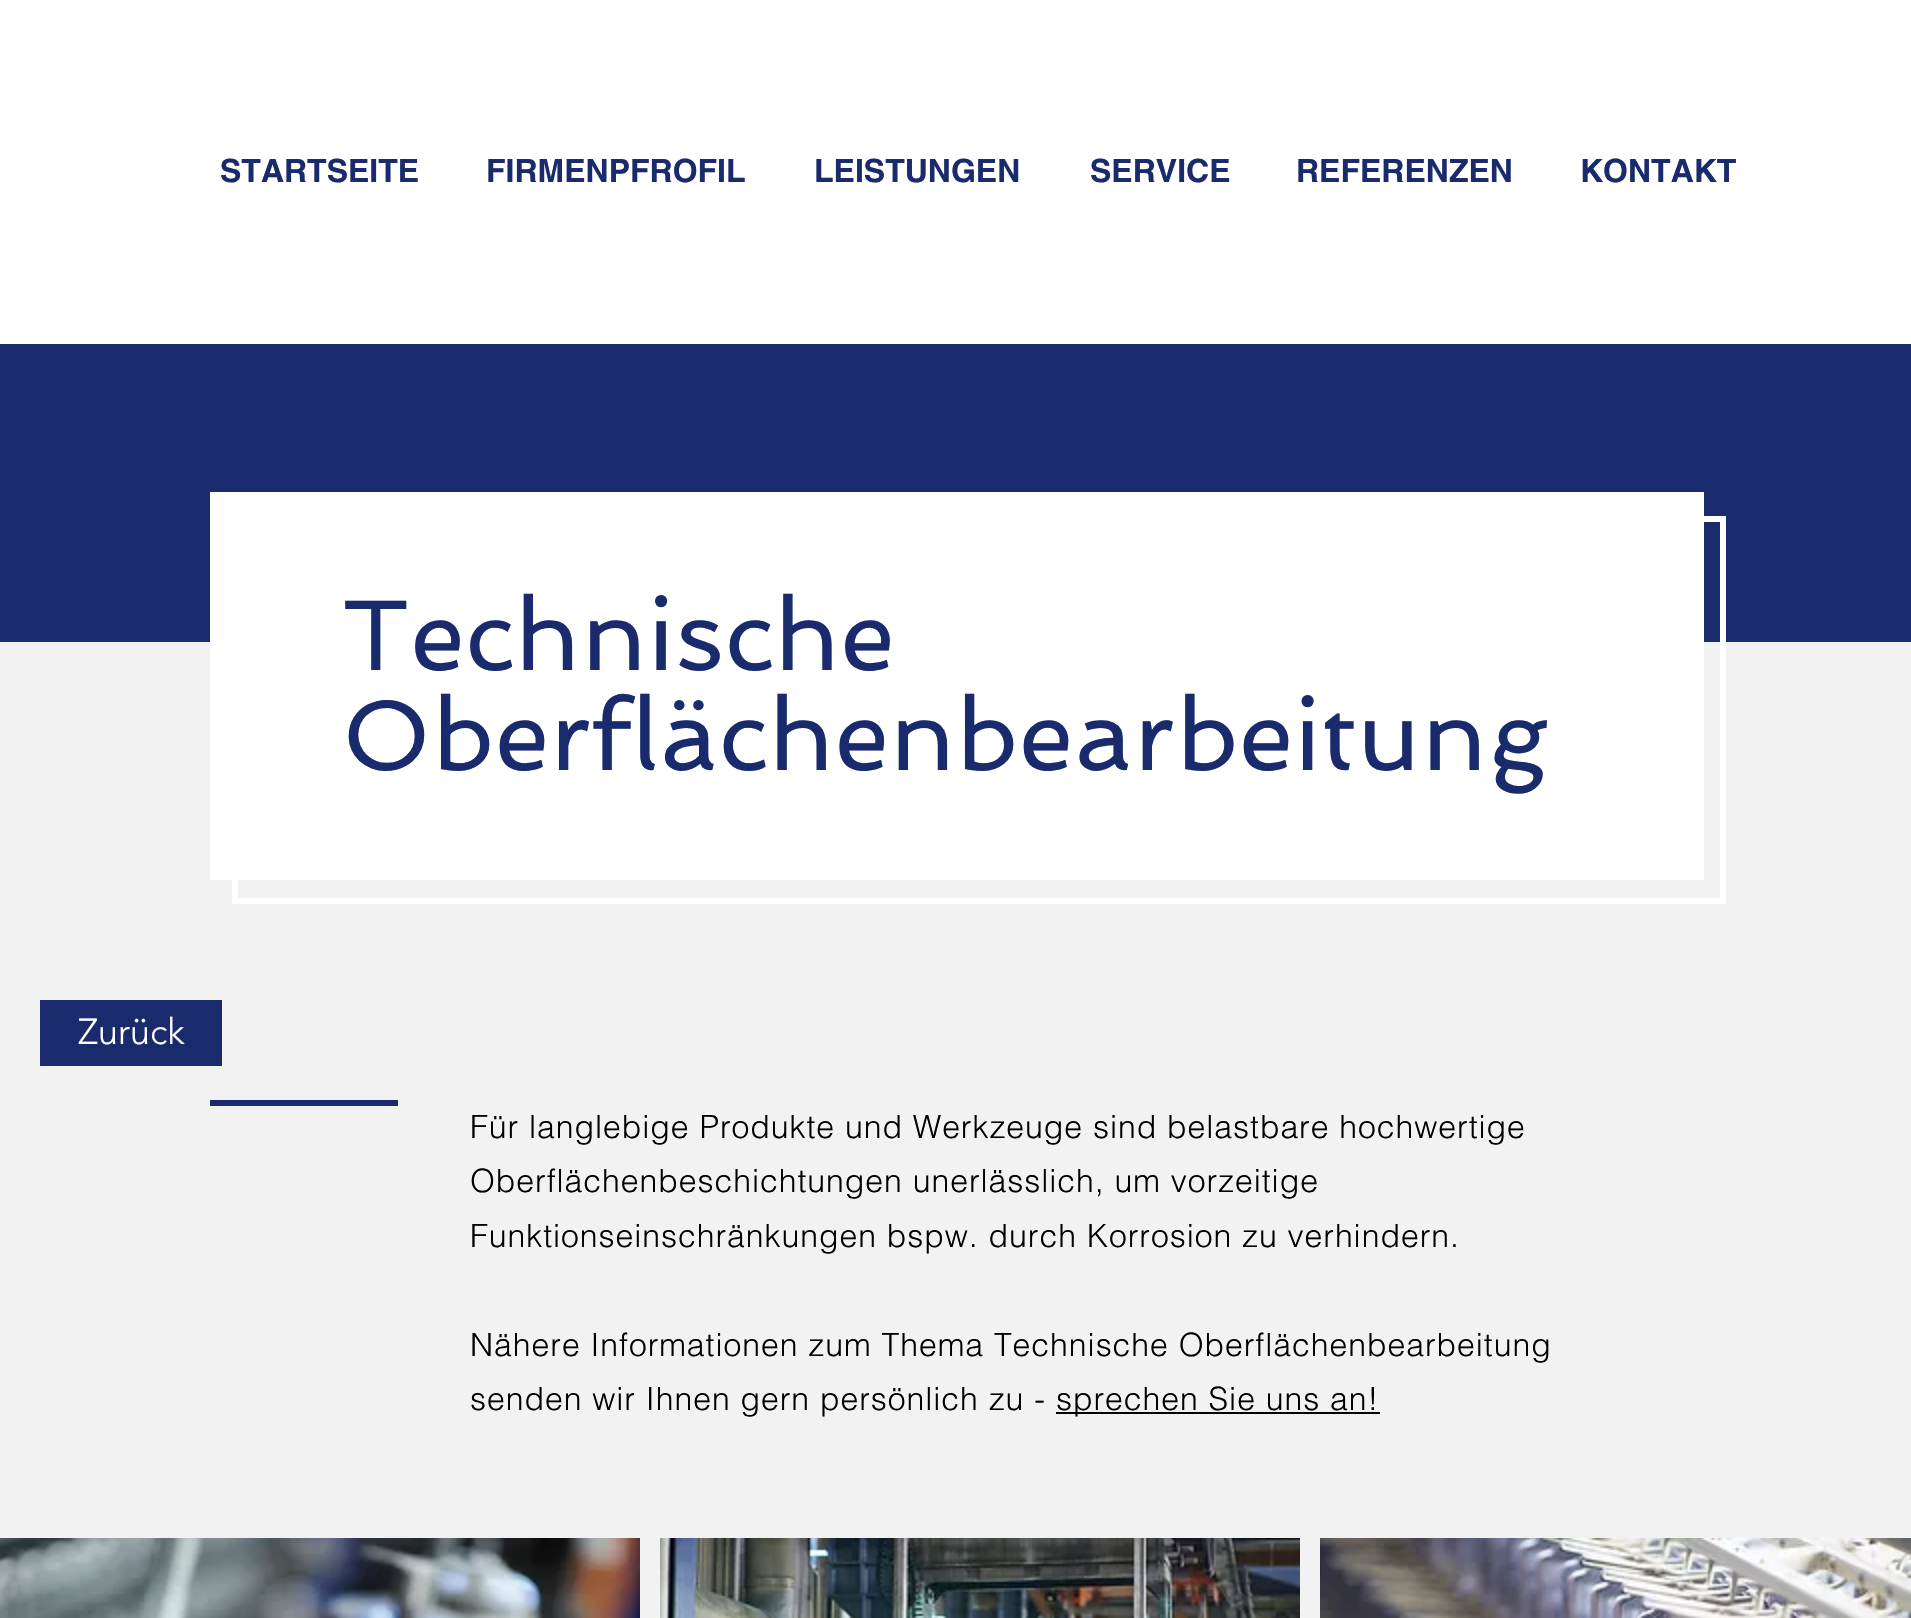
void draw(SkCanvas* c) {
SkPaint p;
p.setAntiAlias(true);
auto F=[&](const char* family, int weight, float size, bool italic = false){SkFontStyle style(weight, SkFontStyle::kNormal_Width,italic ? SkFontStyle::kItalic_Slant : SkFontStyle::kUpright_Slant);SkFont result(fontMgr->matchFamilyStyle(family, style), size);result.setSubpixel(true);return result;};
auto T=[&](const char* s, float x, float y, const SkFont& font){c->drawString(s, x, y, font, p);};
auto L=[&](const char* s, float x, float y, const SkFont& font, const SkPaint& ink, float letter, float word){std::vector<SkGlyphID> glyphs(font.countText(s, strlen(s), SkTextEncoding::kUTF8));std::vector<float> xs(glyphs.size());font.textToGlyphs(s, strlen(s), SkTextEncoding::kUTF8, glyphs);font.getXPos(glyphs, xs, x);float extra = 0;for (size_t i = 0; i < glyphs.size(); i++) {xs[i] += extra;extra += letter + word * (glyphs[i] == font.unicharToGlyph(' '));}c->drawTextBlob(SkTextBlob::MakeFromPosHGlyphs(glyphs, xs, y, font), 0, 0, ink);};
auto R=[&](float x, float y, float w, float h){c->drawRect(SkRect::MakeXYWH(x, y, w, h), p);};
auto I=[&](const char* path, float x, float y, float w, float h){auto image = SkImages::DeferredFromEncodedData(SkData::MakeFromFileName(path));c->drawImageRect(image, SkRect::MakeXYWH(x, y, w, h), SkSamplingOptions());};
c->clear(0xffffffff);
auto f1 = F("helvetica",700,32);
p.setColor(0xff1a2b6d);
T("STARTSEITE",220,182,f1);
T("FIRMENPFROFIL",486,182,f1);
T("LEISTUNGEN",814,182,f1);
T("SERVICE",1090,182,f1);
T("REFERENZEN",1296,182,f1);
T("KONTAKT",1580,182,f1);
R(0,344,1911,298);
p.setColor(0xfff2f2f2);
R(0,642,1911,976);
p.setStroke(true);
p.setStrokeWidth(6);
p.setColor(0xffffffff);
c->drawRect(SkRect::MakeXYWH(235,519,1488,382),p);
p.setStroke(false);
R(210,492,1494,388);
auto f2 = F("Spinnaker",400,100);
p.setColor(0xff1a2b6d);
L("Technische",342,670,f2,p,1,0);
L("Oberflächenbearbeitung",342,770,f2,p,1,0);
R(40,1000,182,66);
auto f3 = F("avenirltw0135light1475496",300,36);
p.setColor(0xffffffff);
T("Zurück",78,1044,f3);
p.setColor(0xff1a2b6d);
R(210,1100,188,6);
auto f4 = F("helvetica",300,32);
p.setColor(0xff000000);
L("Für langlebige Produkte und Werkzeuge sind belastbare hochwertige",470,1138,f4,p,.95,0);
L("Oberflächenbeschichtungen unerlässlich, um vorzeitige",470,1192,f4,p,.95,0);
L("Funktionseinschränkungen bspw. durch Korrosion zu verhindern.",470,1247,f4,p,.95,0);
L("Nähere Informationen zum Thema Technische Oberflächenbearbeitung",470,1356,f4,p,.95,0);
L("senden wir Ihnen gern persönlich zu -",470,1410,f4,p,.95,0);
R(1056,1412,324,2);
L("sprechen Sie uns an!",1056,1410,f4,p,.95,0);
I("1.png",0,1538,640,80);
I("2.png",660,1538,640,80);
I("3.png",1320,1538,591,80);
}
